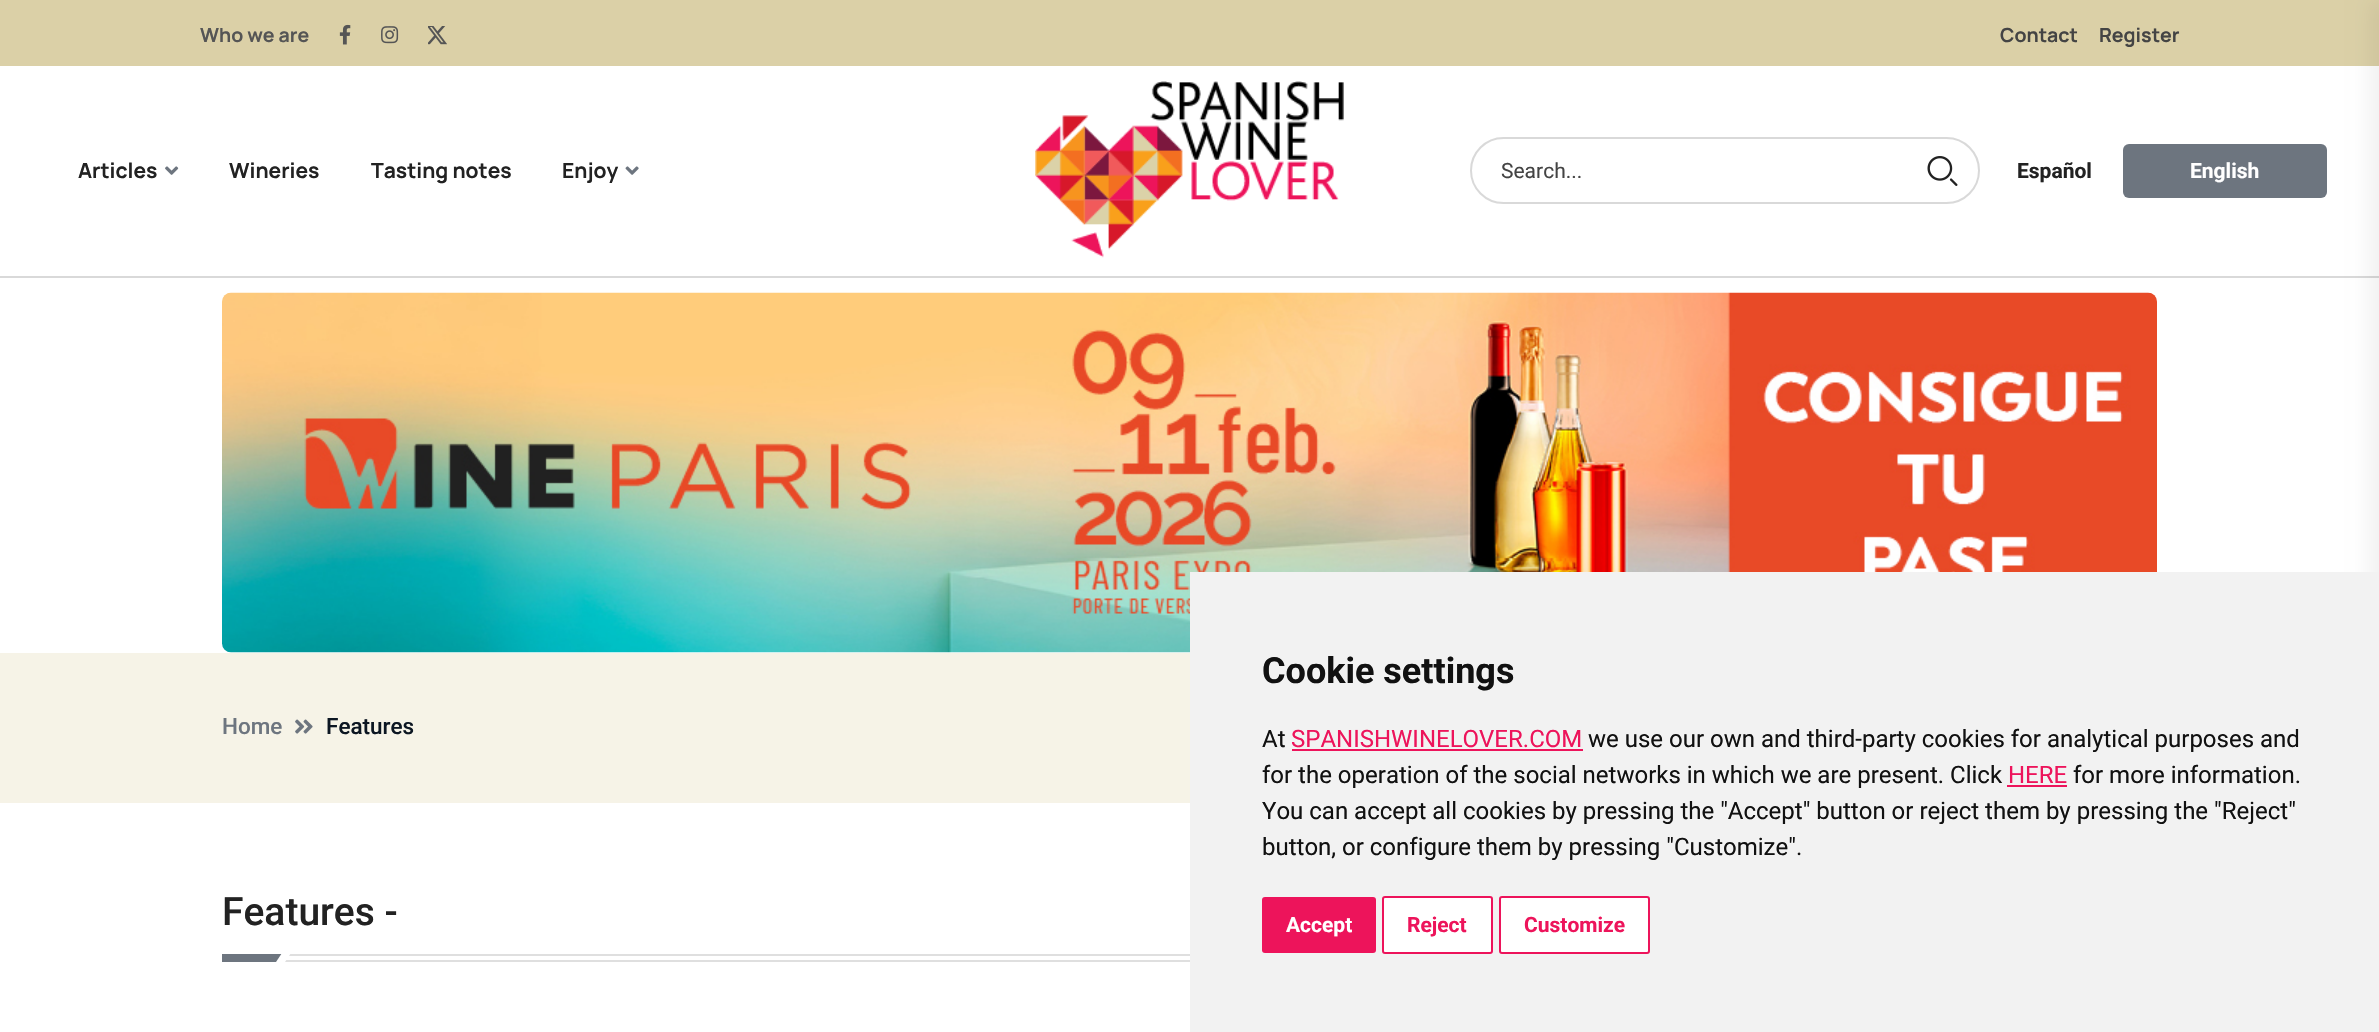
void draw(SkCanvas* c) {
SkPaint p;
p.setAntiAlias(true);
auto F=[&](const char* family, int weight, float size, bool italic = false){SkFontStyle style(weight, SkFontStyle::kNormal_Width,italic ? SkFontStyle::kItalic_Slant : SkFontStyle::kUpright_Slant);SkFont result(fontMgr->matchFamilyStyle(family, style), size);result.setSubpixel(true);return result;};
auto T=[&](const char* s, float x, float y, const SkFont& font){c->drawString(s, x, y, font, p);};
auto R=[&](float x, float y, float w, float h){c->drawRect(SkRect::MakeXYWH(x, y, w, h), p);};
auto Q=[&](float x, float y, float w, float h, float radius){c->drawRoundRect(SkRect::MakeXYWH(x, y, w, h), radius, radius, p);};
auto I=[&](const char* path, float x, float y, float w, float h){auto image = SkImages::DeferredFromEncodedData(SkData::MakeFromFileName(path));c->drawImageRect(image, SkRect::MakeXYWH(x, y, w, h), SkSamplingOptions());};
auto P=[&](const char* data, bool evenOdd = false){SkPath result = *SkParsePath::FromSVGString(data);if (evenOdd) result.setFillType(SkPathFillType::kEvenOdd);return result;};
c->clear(0xffffffff);
p.setColor(0xffdbd0a7);
R(0,0,2379,66);
auto f1 = F("Manrope",700,19.5);
p.setColor(0xff555555);
T("Who we are",200,42,f1);
I("1.png",339,24,12,21);
I("2.png",381,26,18,18);
I("3.png",428,26,19,19);
p.setColor(0xff444444);
T("Contact",2000,42,f1);
T("Register",2099,42,f1);
p.setColor(0xffd9d9d9);
R(0,276,2379,2);
auto f2 = F("Manrope",700,21);
p.setColor(0xff222222);
T("Articles",78,178,f2);
I("4.png",165,166,14,9);
T("Wineries",229,178,f2);
T("Tasting notes",371,178,f2);
T("Enjoy",562,178,f2);
I("5.png",625,166,14,9);
I("6.png",1035,81,309,177);
p.setStroke(true);
p.setStrokeWidth(2);
p.setColor(0xffd9d9d9);
c->drawRoundRect(SkRect::MakeXYWH(1471,138,508,65),32.5,32.5,p);
auto f3 = F("Roboto",400,21);
p.setStroke(false);
p.setColor(0xff444444);
T("Search...",1501,178,f3);
I("7.png",1927,156,31,30);
auto f4 = F("Roboto",700,21);
p.setColor(0xff222222);
T("Español",2017,178,f4);
p.setColor(0xff6d757f);
Q(2123,144,204,54,6);
p.setColor(0xffffffff);
T("English",2190,178,f4);
p.setColor(0x0f000000);
p.setMaskFilter(SkMaskFilter::MakeBlur(kNormal_SkBlurStyle, 10.5));
c->drawRect(SkRect::MakeXYWH(2370,0,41,1032),p);
p.setMaskFilter(nullptr);
I("8.png",222,292,1935,361);
p.setColor(0xfff6f3e7);
R(0,653,1190,150);
auto f5 = F("Roboto",500,22.5);
p.setColor(0xff6d757f);
T("Home",222,734,f5);
I("9.png",295,719,18,15);
p.setColor(0xff0c1622);
T("Features",326,734,f5);
auto f6 = F("Roboto",500,39);
p.setColor(0xff222222);
T("Features -",222,925,f6);
p.setColor(0xffdfdfdf);
R(289,954,901,2);
R(285,960,905,2);
p.setColor(0xff6d757f);
R(222,954,60,8);
p.setColor(0xffffffff);
c->drawPath(P("M291 953l-6 9h-9l6-9z"),p);
p.setColor(0xfff2f2f2);
R(1190,572,1189,460);
auto f7 = F("Roboto",700,36);
p.setColor(0xff111111);
T("Cookie settings",1262,683,f7);
auto f8 = F("Roboto",400,24);
T("At",1262,747,f8);
p.setColor(0xffed145b);
T("SPANISHWINELOVER.COM",1291,747,f8);
R(1292,749,291,2);
p.setColor(0xff111111);
T("we use our own and third-party cookies for analytical purposes and",1588,747,f8);
T("for the operation of the social networks in which we are present. Click",1262,783,f8);
p.setColor(0xffed145b);
T("HERE",2008,783,f8);
R(2007,785,60,2);
p.setColor(0xff111111);
T("for more information.",2073,783,f8);
T("You can accept all cookies by pressing the \"Accept\" button or reject them by pressing the \"Reject\"",1262,819,f8);
T("button, or configure them by pressing \"Customize\".",1262,855,f8);
p.setColor(0xffed145b);
Q(1262,897,114,56,3);
p.setColor(0xffffffff);
T("Accept",1286,932,f4);
c->drawRoundRect(SkRect::MakeXYWH(1383,897,109,56),2,2,p);
p.setStroke(true);
p.setColor(0xffed145b);
c->drawRoundRect(SkRect::MakeXYWH(1383,897,109,56),2,2,p);
p.setStroke(false);
T("Reject",1407,932,f4);
p.setColor(0xffffffff);
c->drawRoundRect(SkRect::MakeXYWH(1500,897,149,56),2,2,p);
p.setStroke(true);
p.setColor(0xffed145b);
c->drawRoundRect(SkRect::MakeXYWH(1500,897,149,56),2,2,p);
p.setStroke(false);
T("Customize",1524,932,f4);
}
